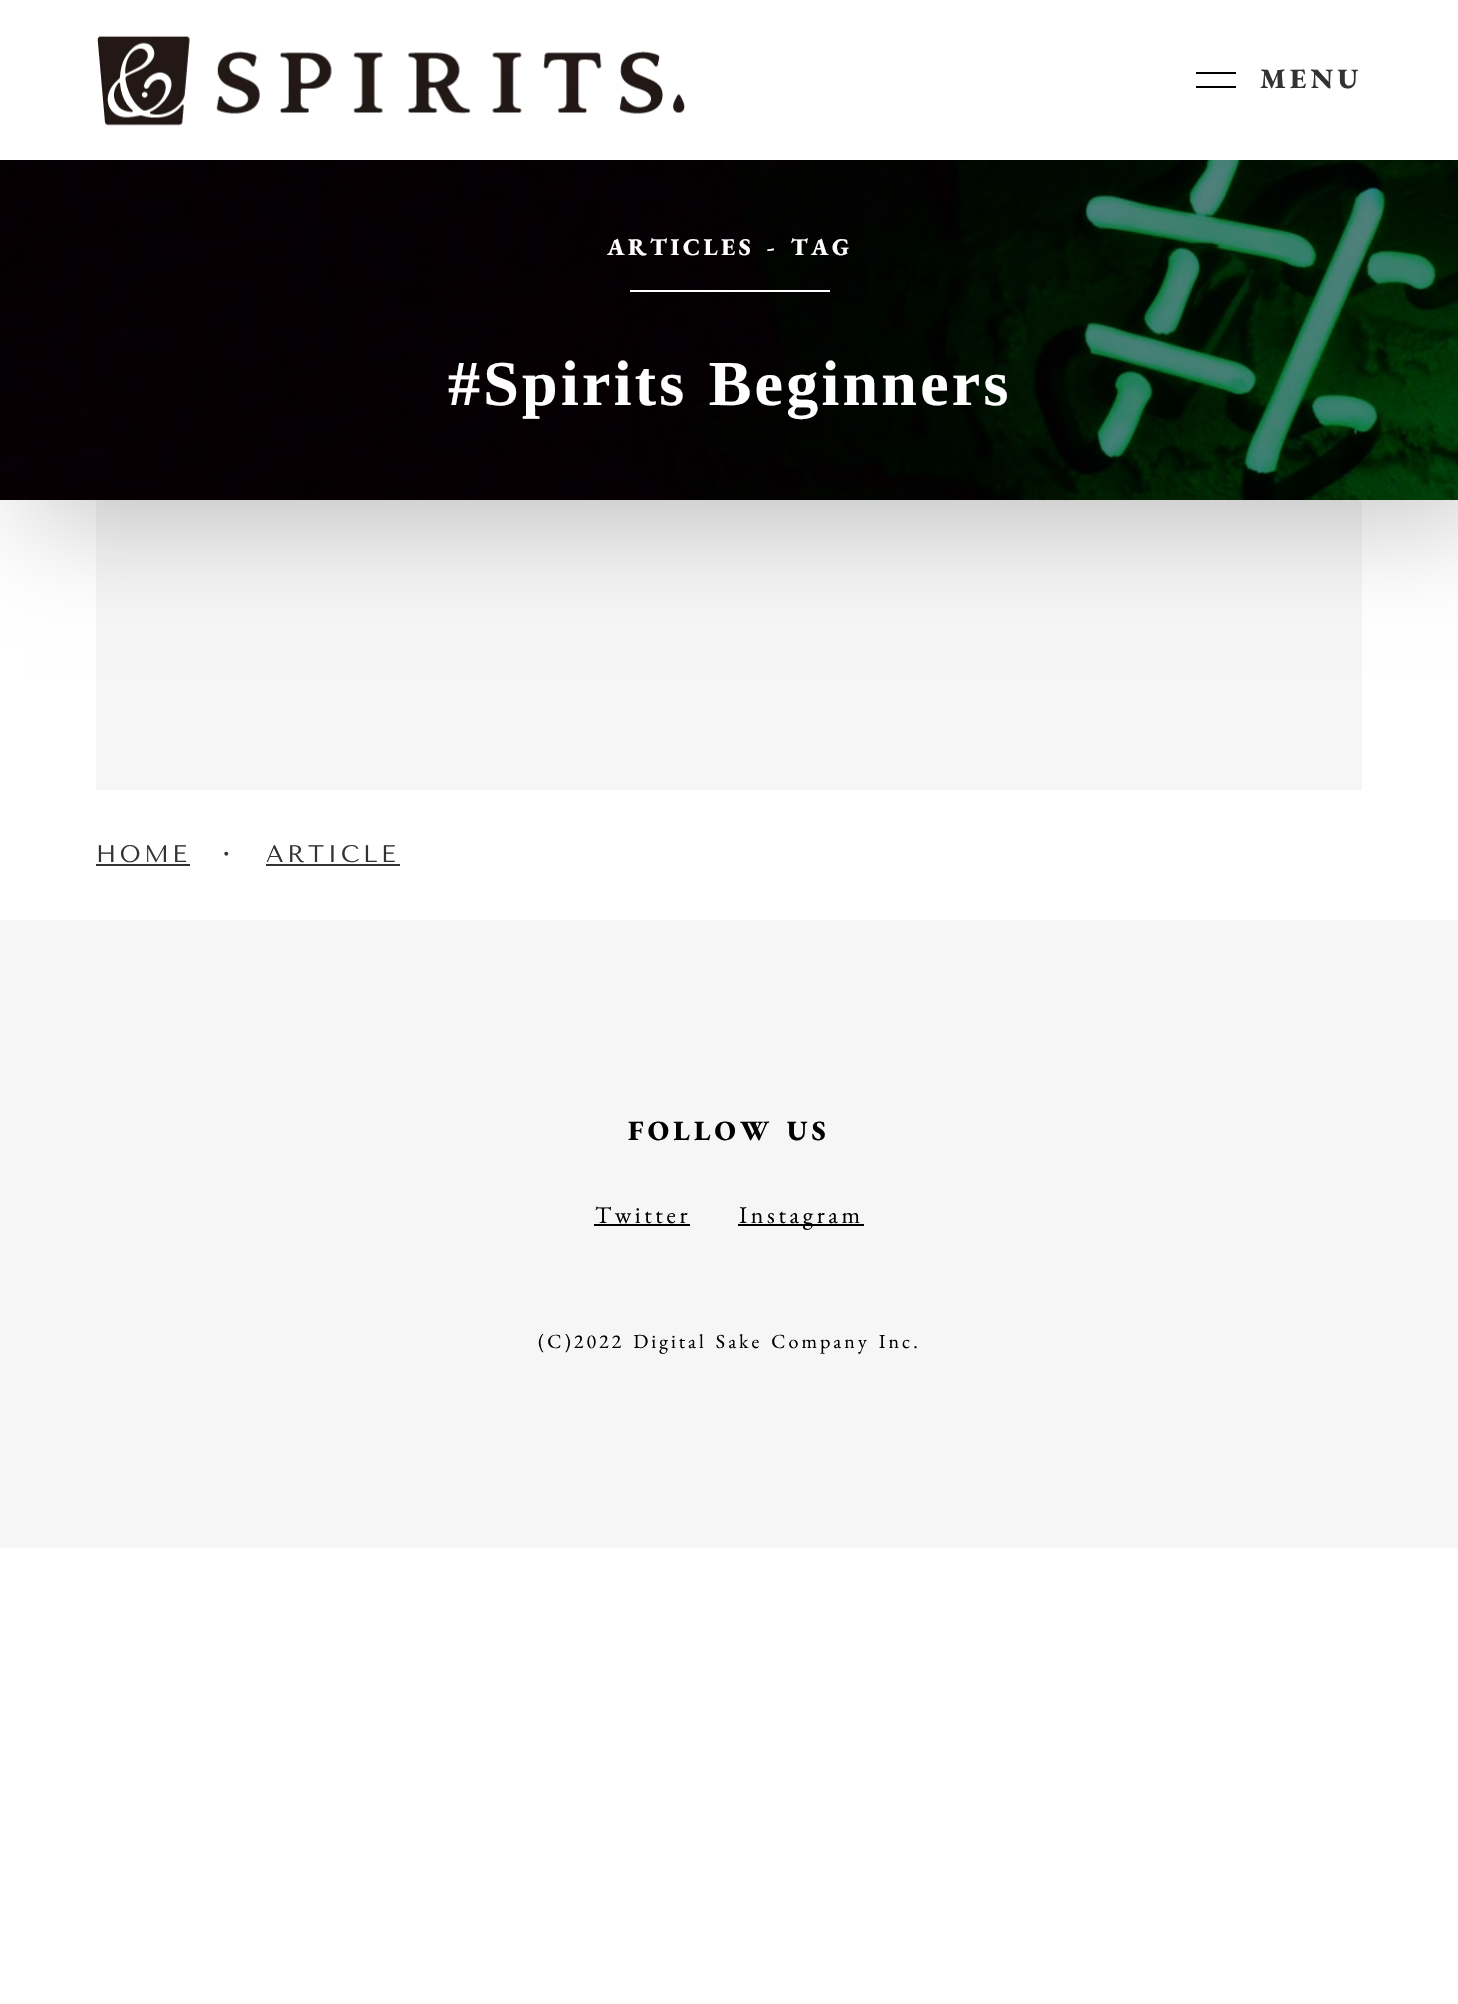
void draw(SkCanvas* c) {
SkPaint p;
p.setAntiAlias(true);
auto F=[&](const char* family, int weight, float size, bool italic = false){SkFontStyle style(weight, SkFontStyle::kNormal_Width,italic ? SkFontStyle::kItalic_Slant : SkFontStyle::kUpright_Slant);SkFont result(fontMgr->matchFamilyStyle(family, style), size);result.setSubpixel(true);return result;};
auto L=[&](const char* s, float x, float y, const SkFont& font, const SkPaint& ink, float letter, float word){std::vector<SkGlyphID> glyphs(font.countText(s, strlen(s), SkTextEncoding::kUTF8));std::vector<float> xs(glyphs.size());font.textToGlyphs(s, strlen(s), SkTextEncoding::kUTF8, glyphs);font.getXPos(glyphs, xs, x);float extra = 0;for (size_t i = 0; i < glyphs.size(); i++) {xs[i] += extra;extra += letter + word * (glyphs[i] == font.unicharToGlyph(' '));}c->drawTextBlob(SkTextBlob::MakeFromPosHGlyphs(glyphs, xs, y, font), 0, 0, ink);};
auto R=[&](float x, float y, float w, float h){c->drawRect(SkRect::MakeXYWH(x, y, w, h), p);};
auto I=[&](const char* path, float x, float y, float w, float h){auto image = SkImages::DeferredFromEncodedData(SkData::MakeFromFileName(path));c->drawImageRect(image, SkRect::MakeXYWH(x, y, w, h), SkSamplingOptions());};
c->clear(0xffffffff);
p.setColor(0xfff6f6f6);
R(96,500,1266,290);
p.setColor(0x33000000);
p.setMaskFilter(SkMaskFilter::MakeBlur(kNormal_SkBlurStyle, 50));
c->drawRect(SkRect::MakeXYWH(28,28,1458,500),p);
p.setMaskFilter(nullptr);
p.setColor(0xffffffff);
R(0,0,1458,160);
I("1.png",97,36,588,90);
p.setColor(0xff000000);
R(1196,72,40,2);
R(1196,86,40,2);
auto f1 = F("EB Garamond",800,28);
p.setColor(0xff333333);
L("MENU",1260,88,f1,p,4.25,0);
I("2.png",0,160,1458,340);
auto f2 = F("EB Garamond",800,24);
p.setColor(0xffffffff);
L("ARTICLES - TAG",607,255,f2,p,3.6,3);
R(630,290,200,2);
auto f3 = F("Liberation Serif",700,64);
L("#Spirits Beginners",448,405,f3,p,3.25,2);
auto f4 = F("Tenor Sans",400,24);
p.setColor(0xff333333);
L("HOME",96,862,f4,p,3.6,0);
R(96,864,94,2);
auto f5 = F("WenQuanYi Zen Hei",500,24);
L("・",214,862,f5,p,3.6,0);
L("ARTICLE",266,862,f4,p,3.6,0);
R(266,864,134,2);
p.setColor(0xfff6f6f6);
R(0,920,1458,628);
p.setColor(0xff000000);
L("FOLLOW US",628,1140,f1,p,4.25,2);
auto f6 = F("EB Garamond",400,24);
L("Twitter",595,1223,f6,p,3.6,0);
R(594,1224,96,2);
R(738,1224,126,2);
L("Instagram",739,1223,f6,p,3.6,0);
auto f7 = F("EB Garamond",400,20);
L("(C)2022 Digital Sake Company Inc.",538,1348,f7,p,3,2);
}
